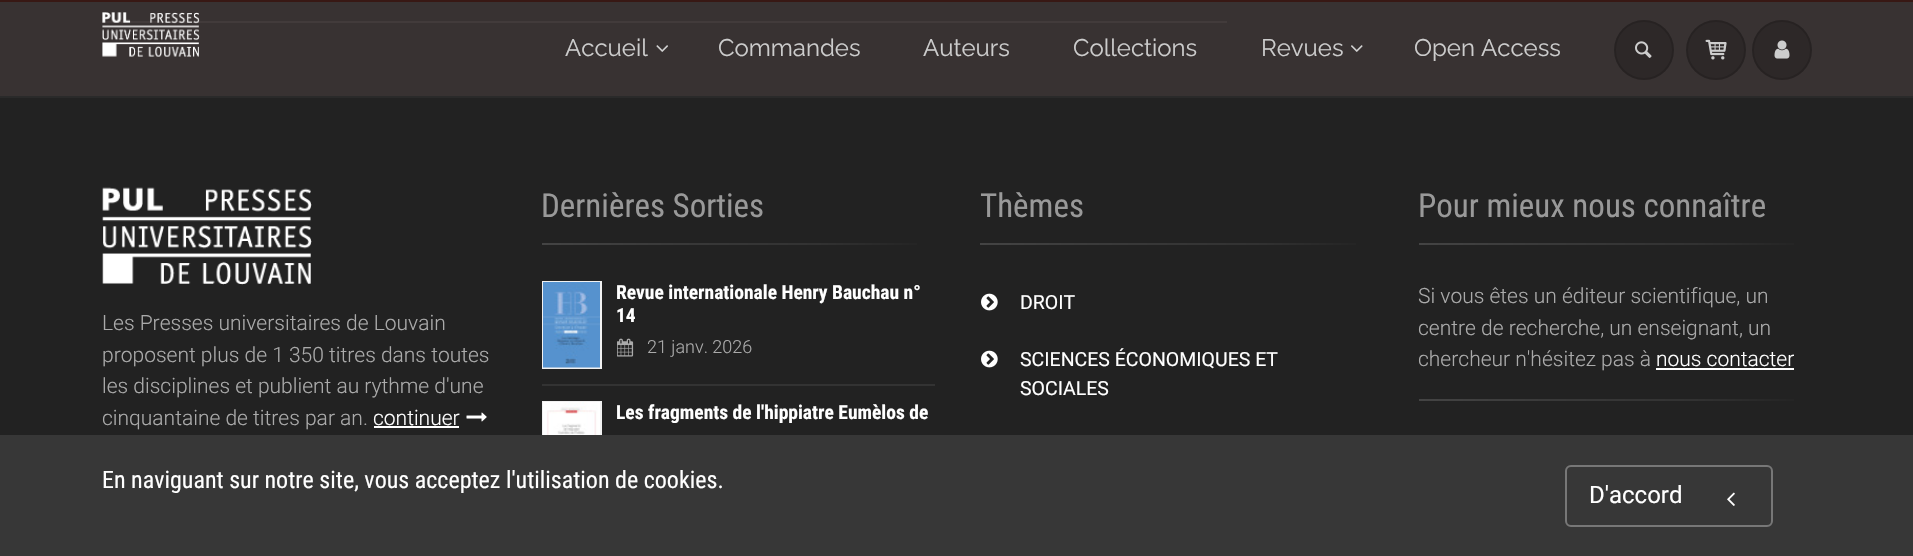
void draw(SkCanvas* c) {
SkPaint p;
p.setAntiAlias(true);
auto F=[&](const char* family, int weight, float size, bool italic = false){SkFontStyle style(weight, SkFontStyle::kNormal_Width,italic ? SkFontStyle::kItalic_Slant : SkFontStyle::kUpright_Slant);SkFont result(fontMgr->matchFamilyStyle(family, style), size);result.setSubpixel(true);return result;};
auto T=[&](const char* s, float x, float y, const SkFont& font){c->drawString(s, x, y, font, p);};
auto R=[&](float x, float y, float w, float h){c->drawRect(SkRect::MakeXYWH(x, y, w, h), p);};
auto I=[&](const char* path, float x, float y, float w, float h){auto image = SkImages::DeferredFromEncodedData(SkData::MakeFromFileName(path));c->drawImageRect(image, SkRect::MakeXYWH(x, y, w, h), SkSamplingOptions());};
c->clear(0xff2a2a2a);
p.setColor(0xff383232);
R(0,2,1913,94);
p.setColor(0xff423b3b);
R(102,21,1125,2);
p.setColor(0xff381814);
R(0,0,1913,2);
I("1.png",102,12,98,45);
auto f1 = F("Raleway",400,24);
p.setColor(0xffcccccc);
T("Accueil",565,56,f1);
I("2.png",656,45,12,7);
T("Commandes",718,56,f1);
T("Auteurs",923,56,f1);
T("Collections",1073,56,f1);
T("Revues",1261,56,f1);
I("3.png",1351,45,12,7);
T("Open Access",1414,56,f1);
p.setColor(0xff2d2828);
c->drawCircle(1644,50,30,p);
p.setStroke(true);
p.setStrokeWidth(2);
p.setColor(0x26000000);
c->drawCircle(1644,50,29,p);
I("4.png",1635,41,17,17);
p.setStroke(false);
p.setColor(0xff2d2828);
c->drawCircle(1716,50,30,p);
p.setStroke(true);
p.setColor(0x26000000);
c->drawCircle(1716,50,29,p);
I("5.png",1705,39,22,21);
p.setStroke(false);
p.setColor(0xff2d2828);
c->drawCircle(1782,50,30,p);
p.setStroke(true);
p.setColor(0x26000000);
c->drawCircle(1782,50,29,p);
I("6.png",1774,40,16,19);
p.setStroke(false);
p.setColor(0xff222222);
R(0,98,1913,337);
I("7.png",102,187,210,98);
auto f2 = F("Roboto",300,21);
p.setColor(0xffaaaaaa);
T("Les Presses universitaires de Louvain",102,330,f2);
T("proposent plus de 1 350 titres dans toutes",102,362,f2);
T("les disciplines et publient au rythme d'une",102,393,f2);
T("cinquantaine de titres par an.",102,425,f2);
p.setColor(0xffffffff);
T("continuer",373,425,f2);
R(374,426,85,2);
I("8.png",466,412,21,10);
auto f3 = F("Roboto Condensed",400,33);
p.setColor(0xff999999);
T("Dernières Sorties",541,217,f3);
{
const SkColor colors[] = {0xff444444,0xff393939,0xff323232,0xff222222};
const float stops[] = {0,.35,.7,1};
const SkPoint ends[] = {{542,244}, {935,244}};
p.setShader(SkGradientShader::MakeLinear(ends, colors, stops, 4, SkTileMode::kClamp));
p.setAlpha(255);
}
R(542,243,375,2);
p.setStroke(true);
p.setShader(nullptr);
p.setColor(0xfff1f1f1);
c->drawRect(SkRect::MakeXYWH(543,282,58,86),p);
I("9.png",543,282,57,86);
c->save();
c->clipRect(SkRect::MakeXYWH(617,281,318,88));
auto f4 = F("Roboto Condensed",700,19.5);
p.setStroke(false);
p.setColor(0xffffffff);
T("Revue internationale Henry Bauchau n°",616,299,f4);
c->restore();
T("14",616,322,f4);
I("10.png",617,338,17,19);
auto f5 = F("Roboto",300,18);
p.setColor(0xffaaaaaa);
T("21 janv. 2026",647,353,f5);
p.setColor(0xff333333);
R(542,384,393,2);
p.setStroke(true);
p.setColor(0xfff1f1f1);
c->drawRect(SkRect::MakeXYWH(543,402,58,83),p);
I("11.png",543,402,57,33);
c->save();
c->clipRect(SkRect::MakeXYWH(617,401,318,85));
p.setStroke(false);
p.setColor(0xffffffff);
T("Les fragments de l'hippiatre Eumèlos de",616,419,f4);
c->restore();
p.setColor(0xff999999);
T("Thèmes",980,217,f3);
{
const SkColor colors[] = {0xff444444,0xff393939,0xff323232,0xff222222};
const float stops[] = {0,.35,.7,1};
const SkPoint ends[] = {{980,244}, {1374,244}};
p.setShader(SkGradientShader::MakeLinear(ends, colors, stops, 4, SkTileMode::kClamp));
p.setAlpha(255);
}
R(980,243,376,2);
I("12.png",981,293,17,18);
auto f6 = F("Roboto",400,19.5);
p.setShader(nullptr);
p.setColor(0xffffffff);
T("DROIT",1020,309,f6);
I("12.png",981,350,17,18);
T("SCIENCES ÉCONOMIQUES ET",1020,366,f6);
T("SOCIALES",1020,395,f6);
p.setColor(0xff999999);
T("Pour mieux nous connaître",1418,217,f3);
{
const SkColor colors[] = {0xff444444,0xff393939,0xff323232,0xff222222};
const float stops[] = {0,.35,.7,1};
const SkPoint ends[] = {{1419,244}, {1812,244}};
p.setShader(SkGradientShader::MakeLinear(ends, colors, stops, 4, SkTileMode::kClamp));
p.setAlpha(255);
}
R(1419,243,375,2);
p.setShader(nullptr);
p.setColor(0xffaaaaaa);
T("Si vous êtes un éditeur scientifique, un",1418,303,f2);
T("centre de recherche, un enseignant, un",1418,335,f2);
T("chercheur n'hésitez pas à",1418,366,f2);
p.setColor(0xffffffff);
T("nous contacter",1656,366,f2);
R(1656,368,138,2);
{
const SkColor colors[] = {0xff444444,0xff393939,0xff323232,0xff222222};
const float stops[] = {0,.35,.7,1};
const SkPoint ends[] = {{1419,400}, {1812,400}};
p.setShader(SkGradientShader::MakeLinear(ends, colors, stops, 4, SkTileMode::kClamp));
p.setAlpha(255);
}
R(1419,399,375,2);
p.setShader(nullptr);
p.setColor(0xff373737);
R(0,435,1913,121);
auto f7 = F("Roboto Condensed",400,24);
p.setColor(0xffffffff);
T("En naviguant sur notre site, vous acceptez l'utilisation de cookies.",102,488,f7);
p.setStroke(true);
p.setColor(0xff777777);
c->drawRoundRect(SkRect::MakeXYWH(1566,466,206,60),5,5,p);
auto f8 = F("Roboto",400,24);
p.setStroke(false);
p.setColor(0xffffffff);
T("D'accord",1589,503,f8);
I("13.png",1727,492,8,14);
}
